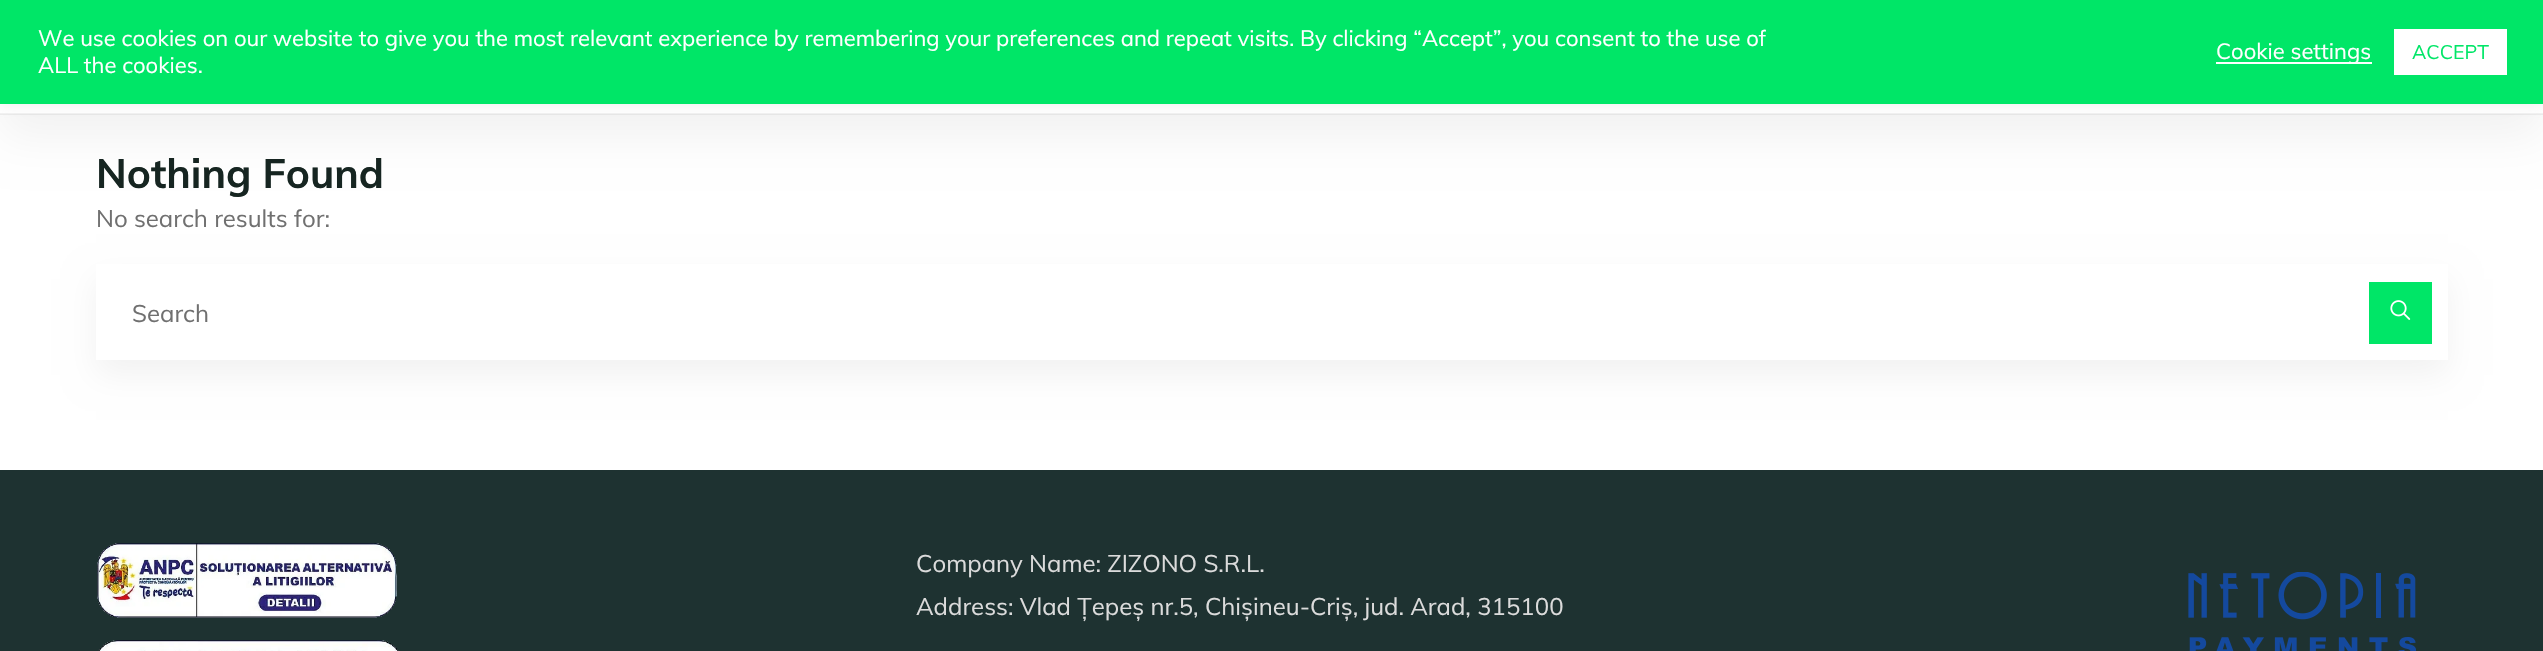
void draw(SkCanvas* c) {
SkPaint p;
p.setAntiAlias(true);
auto F=[&](const char* family, int weight, float size, bool italic = false){SkFontStyle style(weight, SkFontStyle::kNormal_Width,italic ? SkFontStyle::kItalic_Slant : SkFontStyle::kUpright_Slant);SkFont result(fontMgr->matchFamilyStyle(family, style), size);result.setSubpixel(true);return result;};
auto T=[&](const char* s, float x, float y, const SkFont& font){c->drawString(s, x, y, font, p);};
auto R=[&](float x, float y, float w, float h){c->drawRect(SkRect::MakeXYWH(x, y, w, h), p);};
auto I=[&](const char* path, float x, float y, float w, float h){auto image = SkImages::DeferredFromEncodedData(SkData::MakeFromFileName(path));c->drawImageRect(image, SkRect::MakeXYWH(x, y, w, h), SkSamplingOptions());};
auto P=[&](const char* data, bool evenOdd = false){SkPath result = *SkParsePath::FromSVGString(data);if (evenOdd) result.setFillType(SkPathFillType::kEvenOdd);return result;};
c->clear(0xffffffff);
p.setColor(0x0d000000);
p.setMaskFilter(SkMaskFilter::MakeBlur(kNormal_SkBlurStyle, 22.5));
c->drawRect(SkRect::MakeXYWH(0,23,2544,114),p);
p.setMaskFilter(nullptr);
p.setColor(0xffffffff);
R(0,104,2543,10);
p.setColor(0x0d000000);
R(0,113,2543,2);
p.setColor(0x4dacabab);
p.setMaskFilter(SkMaskFilter::MakeBlur(kNormal_SkBlurStyle, 7.5));
c->drawRect(SkRect::MakeXYWH(0,-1,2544,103),p);
p.setMaskFilter(nullptr);
p.setColor(0xff00e667);
R(0,0,2543,104);
auto f1 = F("Muli",400,22);
p.setColor(0xffffffff);
T("We use cookies on our website to give you the most relevant experience by remembering your preferences and repeat visits. By clicking “Accept”, you consent to the use of",38,46,f1);
T("ALL the cookies.",38,73,f1);
R(2216,62,156,2);
T("Cookie settings",2216,59,f1);
R(2394,29,113,46);
auto f2 = F("Muli",400,19.5);
p.setColor(0xff00e667);
T("ACCEPT",2412,59,f2);
auto f3 = F("Muli",700,40.75);
p.setColor(0xff162521);
T("Nothing Found",96,188,f3);
auto f4 = F("Muli",400,24);
p.setColor(0xff707070);
T("No search results for:",96,227,f4);
c->save();
c->clipPath(P("M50 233h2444v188h-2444zm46 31h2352v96h-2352z",true),true);
p.setColor(0x0d000000);
p.setMaskFilter(SkMaskFilter::MakeBlur(kNormal_SkBlurStyle, 15));
c->drawRect(SkRect::MakeXYWH(96,279,2352,96),p);
p.setMaskFilter(nullptr);
c->restore();
p.setColor(0xff707070);
T("Search",132,322,f4);
p.setColor(0xff00e667);
R(2369,282,63,62);
I("1.png",2390,300,21,20);
p.setColor(0xff1e3231);
R(0,470,2543,181);
I("2.png",97,543,300,75);
I("3.png",98,640,301,11);
p.setColor(0xffdbdbdb);
T("Company Name: ZIZONO S.R.L.",916,572,f4);
T("Address: Vlad Țepeș nr.5, Chișineu-Criș, jud. Arad, 315100",916,615,f4);
I("4.png",2188,572,228,79);
}
